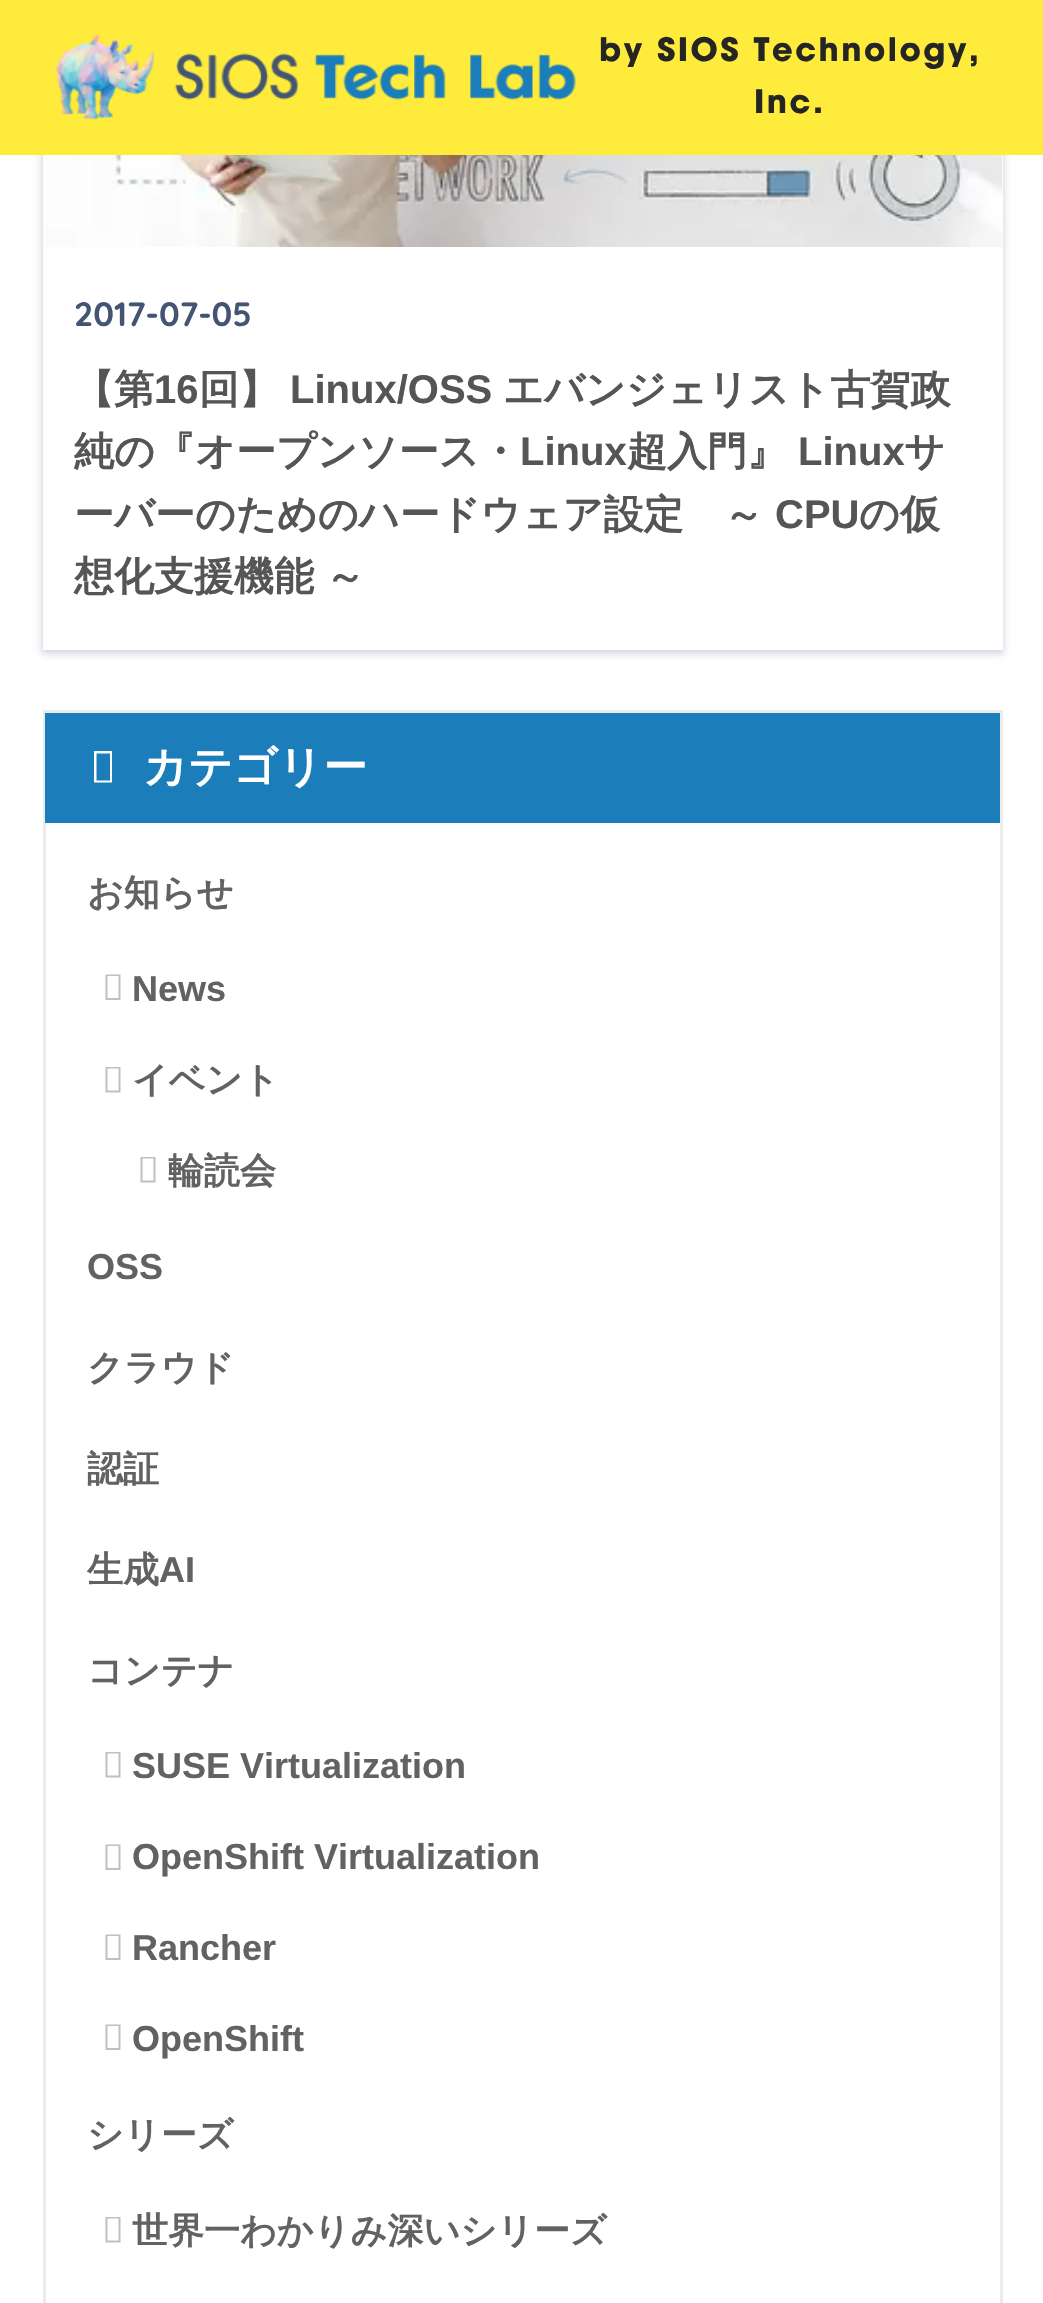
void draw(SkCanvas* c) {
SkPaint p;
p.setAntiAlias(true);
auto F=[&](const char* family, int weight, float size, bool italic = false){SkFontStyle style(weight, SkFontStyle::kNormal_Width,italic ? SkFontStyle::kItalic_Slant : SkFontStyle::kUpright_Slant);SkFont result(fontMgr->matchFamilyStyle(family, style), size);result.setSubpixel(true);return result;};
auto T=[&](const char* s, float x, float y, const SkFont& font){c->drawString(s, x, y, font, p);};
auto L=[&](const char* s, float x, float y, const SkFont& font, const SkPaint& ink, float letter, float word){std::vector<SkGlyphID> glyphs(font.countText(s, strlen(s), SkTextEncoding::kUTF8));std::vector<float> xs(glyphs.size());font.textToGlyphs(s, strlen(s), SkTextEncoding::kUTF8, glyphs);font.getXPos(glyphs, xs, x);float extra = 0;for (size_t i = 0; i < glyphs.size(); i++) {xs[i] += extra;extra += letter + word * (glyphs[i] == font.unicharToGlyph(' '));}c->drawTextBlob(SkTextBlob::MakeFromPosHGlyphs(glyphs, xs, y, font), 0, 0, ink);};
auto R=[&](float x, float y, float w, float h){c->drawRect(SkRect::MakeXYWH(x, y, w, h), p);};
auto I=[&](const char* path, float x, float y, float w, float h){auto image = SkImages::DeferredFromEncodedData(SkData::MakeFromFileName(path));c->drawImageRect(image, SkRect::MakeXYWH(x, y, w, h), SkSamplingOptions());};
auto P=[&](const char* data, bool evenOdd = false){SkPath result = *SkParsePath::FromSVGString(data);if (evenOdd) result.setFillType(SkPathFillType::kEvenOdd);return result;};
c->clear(0xffffffff);
p.setColor(0x1a182c54);
p.setMaskFilter(SkMaskFilter::MakeBlur(kNormal_SkBlurStyle, 4));
c->drawRect(SkRect::MakeXYWH(40,-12,965,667),p);
p.setMaskFilter(nullptr);
p.setMaskFilter(SkMaskFilter::MakeBlur(kNormal_SkBlurStyle, 2.5));
c->drawRect(SkRect::MakeXYWH(43,-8,960,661),p);
p.setMaskFilter(nullptr);
p.setColor(0xfffeeb3b);
R(0,0,1043,155);
I("1.png",56,34,520,86);
auto f1 = F("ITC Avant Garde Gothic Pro",700,32);
p.setColor(0xff252525);
L("by SIOS Technology,",599,61,f1,p,2.5,0);
L("Inc.",754,113,f1,p,2.5,0);
p.setColor(0xffffffff);
R(43,155,960,495);
I("2.png",43,155,960,92);
auto f2 = F("Quicksand",700,33.75);
p.setColor(0xff445573);
T("2017-07-05",74,326,f2);
auto f3 = F("WenQuanYi Zen Hei",700,40);
p.setColor(0xff555555);
T("【第",74,403,f3);
auto f4 = F("Liberation Sans",700,40);
T("16",154,403,f4);
T("回】",199,403,f3);
T("Linux/OSS",290,403,f4);
T("エバンジェリスト古賀政",503,403,f3);
T("純の『オープンソース・",74,465,f3);
T("Linux",520,465,f4);
T("超入門』",627,465,f3);
T("Linux",798,465,f4);
T("サ",904,465,f3);
T("ーバーのためのハードウェア設定　～",74,528,f3);
T("CPU",775,528,f4);
T("の仮",859,528,f3);
L("想化支援機能 ～",74,590,f3,p,0,-1);
p.setStroke(true);
p.setStrokeWidth(3);
p.setColor(0xffebebeb);
c->drawRect(SkRect::MakeXYWH(44.5,711.5,957,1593),p);
p.setStroke(false);
p.setColor(0xff1b7db9);
R(45,713,955,110);
p.setColor(0xffffffff);
c->drawPath(P("M94 782.5v-31.5h18v31.5zm2.5-2h13.5v-27h-13.5z"),p);
auto f5 = F("WenQuanYi Zen Hei",700,44);
T("カテゴリー",143,782,f5);
auto f6 = F("WenQuanYi Zen Hei",700,36);
p.setColor(0xff626262);
T("お知らせ",87,905,f6);
p.setColor(0xffc0c0c0);
c->drawPath(P("M105.5 1000v-25.5h15v25.5zm2-2h11v-22h-11z"),p);
auto f7 = F("Liberation Sans",700,36);
p.setColor(0xff626262);
T("News",132,1001,f7);
p.setColor(0xffc0c0c0);
c->drawPath(P("M105.5 1092.5v-25.5h15v25.5zm2-2h11v-22h-11z"),p);
p.setColor(0xff626262);
T("イベント",132,1092,f6);
p.setColor(0xffc0c0c0);
c->drawPath(P("M140.5 1182.5v-25.5h15v25.5zm2-2h11v-22h-11z"),p);
p.setColor(0xff626262);
T("輪読会",168,1183,f6);
T("OSS",87,1279,f7);
T("クラウド",87,1380,f6);
T("認証",87,1481,f6);
T("生成",87,1582,f6);
T("AI",159,1582,f7);
T("コンテナ",87,1683,f6);
p.setColor(0xffc0c0c0);
c->drawPath(P("M105.5 1777.5v-25.5h15v25.5zm2-2h11v-22h-11z"),p);
p.setColor(0xff626262);
T("SUSE Virtualization",132,1778,f7);
p.setColor(0xffc0c0c0);
c->drawPath(P("M105.5 1870v-25.5h15v25.5zm2-2h11v-22h-11z"),p);
p.setColor(0xff626262);
T("OpenShift Virtualization",132,1869,f7);
p.setColor(0xffc0c0c0);
c->drawPath(P("M105.5 1960v-25.5h15v25.5zm2-2h11v-22h-11z"),p);
p.setColor(0xff626262);
T("Rancher",132,1960,f7);
p.setColor(0xffc0c0c0);
c->drawPath(P("M105.5 2050v-25.5h15v25.5zm2-2h11v-22h-11z"),p);
p.setColor(0xff626262);
T("OpenShift",132,2051,f7);
T("シリーズ",87,2147,f6);
p.setColor(0xffc0c0c0);
c->drawPath(P("M105.5 2242.5v-25.5h15v25.5zm2-2h11v-22h-11z"),p);
p.setColor(0xff626262);
T("世界一わかりみ深いシリーズ",132,2243,f6);
}
